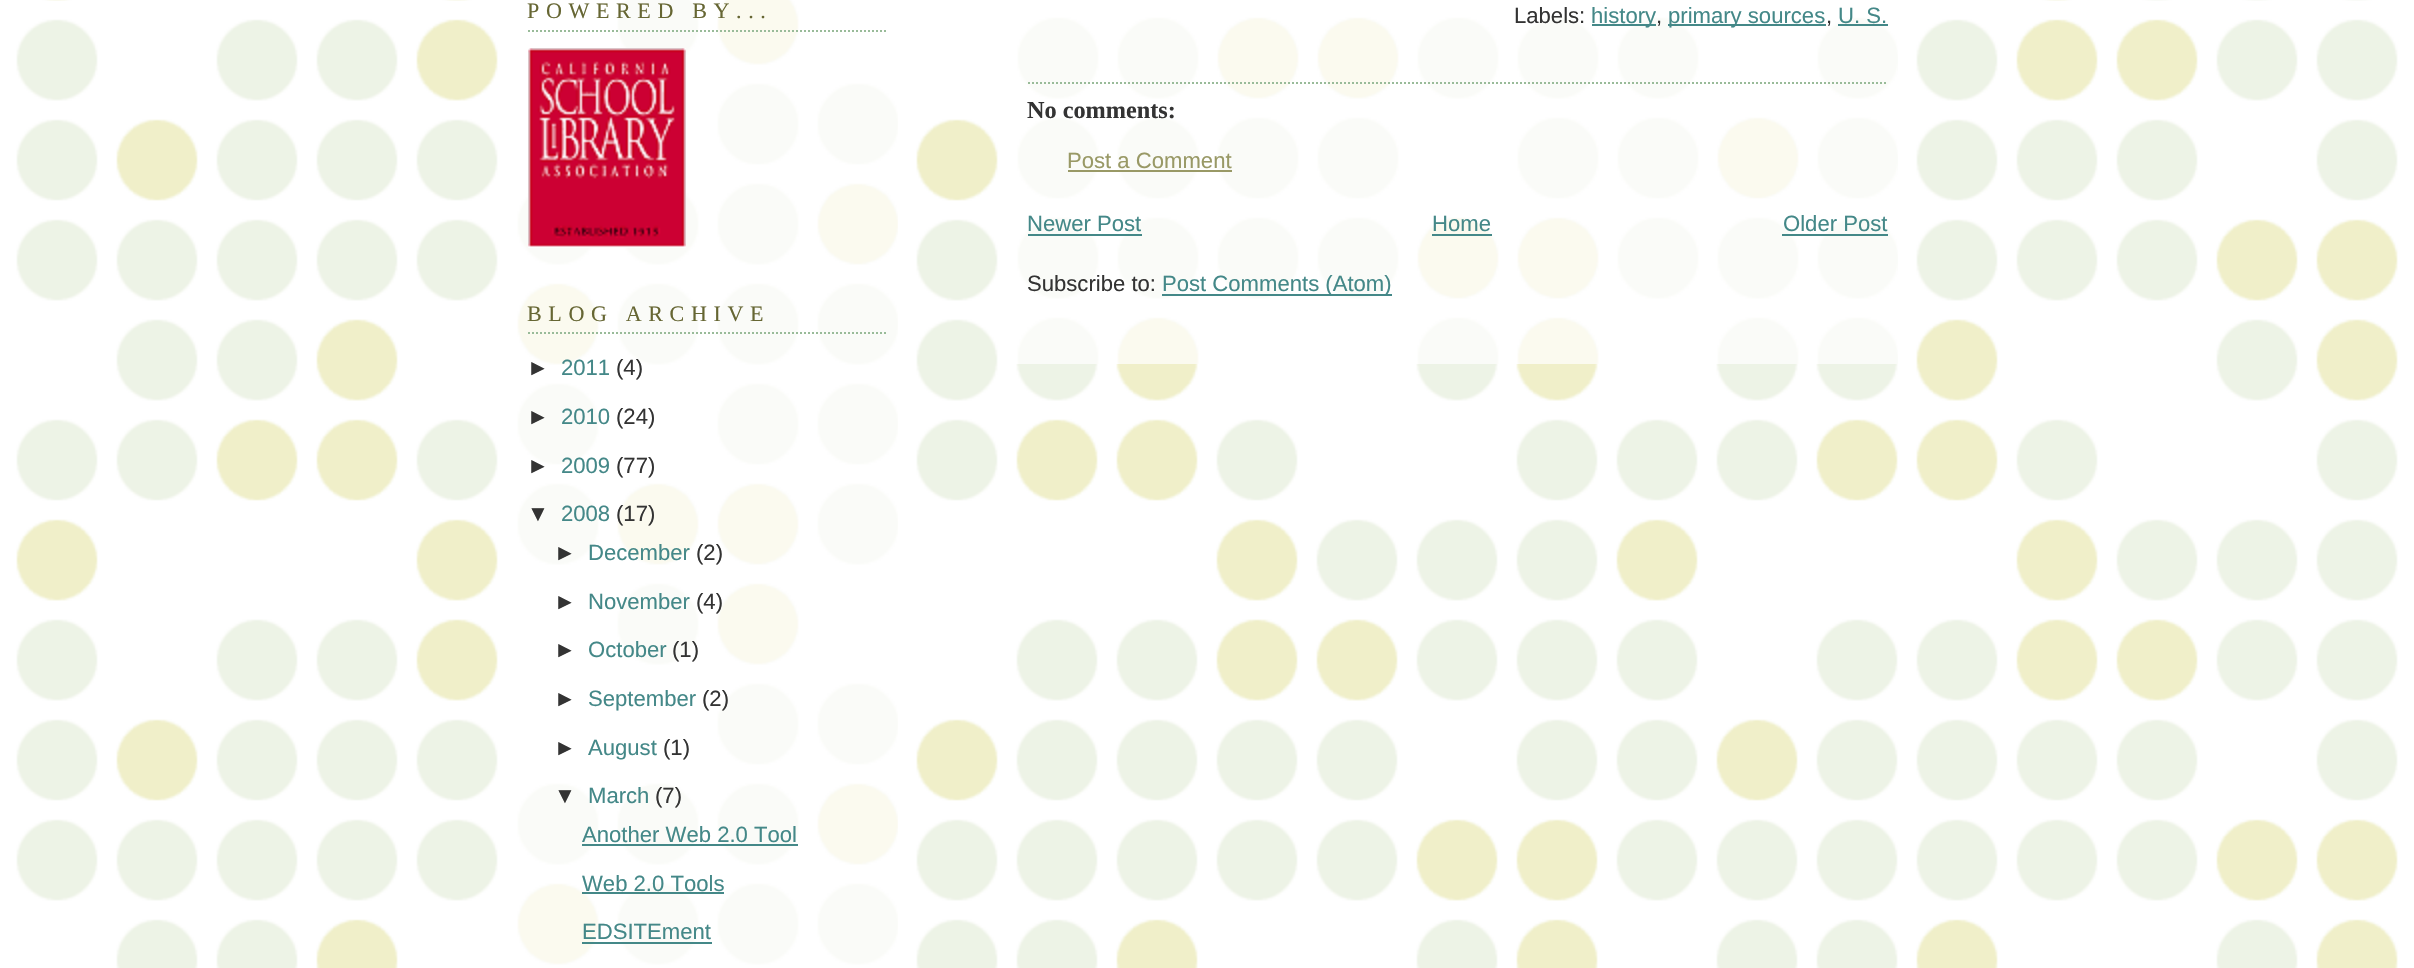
void draw(SkCanvas* c) {
SkPaint p;
p.setAntiAlias(true);
auto F=[&](const char* family, int weight, float size, bool italic = false){SkFontStyle style(weight, SkFontStyle::kNormal_Width,italic ? SkFontStyle::kItalic_Slant : SkFontStyle::kUpright_Slant);SkFont result(fontMgr->matchFamilyStyle(family, style), size);result.setSubpixel(true);return result;};
auto T=[&](const char* s, float x, float y, const SkFont& font){c->drawString(s, x, y, font, p);};
auto L=[&](const char* s, float x, float y, const SkFont& font, const SkPaint& ink, float letter, float word){std::vector<SkGlyphID> glyphs(font.countText(s, strlen(s), SkTextEncoding::kUTF8));std::vector<float> xs(glyphs.size());font.textToGlyphs(s, strlen(s), SkTextEncoding::kUTF8, glyphs);font.getXPos(glyphs, xs, x);float extra = 0;for (size_t i = 0; i < glyphs.size(); i++) {xs[i] += extra;extra += letter + word * (glyphs[i] == font.unicharToGlyph(' '));}c->drawTextBlob(SkTextBlob::MakeFromPosHGlyphs(glyphs, xs, y, font), 0, 0, ink);};
auto R=[&](float x, float y, float w, float h){c->drawRect(SkRect::MakeXYWH(x, y, w, h), p);};
auto I=[&](const char* path, float x, float y, float w, float h){auto image = SkImages::DeferredFromEncodedData(SkData::MakeFromFileName(path));c->drawImageRect(image, SkRect::MakeXYWH(x, y, w, h), SkSamplingOptions());};
auto P=[&](const char* data, bool evenOdd = false){SkPath result = *SkParsePath::FromSVGString(data);if (evenOdd) result.setFillType(SkPathFillType::kEvenOdd);return result;};
c->clear(0xffffffff);
I("1.png",16,0,2382,968);
I("2.png",516,0,382,968);
p.setStroke(true);
p.setStrokeWidth(2);
p.setColor(0xff99bb99);
p.setPathEffect(SkDashPathEffect::Make({{2,2}}, 0));
c->drawPath(P("M528 31h360"),p);
p.setPathEffect(nullptr);
auto f1 = F("Liberation Serif",400,22.1);
p.setStroke(false);
p.setColor(0xff666633);
L("POWERED BY...",527,18,f1,p,6.6,0);
I("3.png",528,48,158,200);
p.setStroke(true);
p.setColor(0xff99bb99);
p.setPathEffect(SkDashPathEffect::Make({{2,2}}, 0));
c->drawPath(P("M528 333h360"),p);
p.setPathEffect(nullptr);
p.setStroke(false);
p.setColor(0xff666633);
L("BLOG ARCHIVE",527,321,f1,p,6.6,0);
auto f2 = F("Liberation Sans",400,22.1);
p.setColor(0xff333333);
T("►",527,375,f2);
p.setColor(0xff448888);
T("2011",561,375,f2);
p.setColor(0xff333333);
T("(4)",616,375,f2);
T("►",527,424,f2);
p.setColor(0xff448888);
T("2010",561,424,f2);
p.setColor(0xff333333);
T("(24)",616,424,f2);
T("►",527,473,f2);
p.setColor(0xff448888);
T("2009",561,473,f2);
p.setColor(0xff333333);
T("(77)",616,473,f2);
T("▼",527,521,f2);
p.setColor(0xff448888);
T("2008",561,521,f2);
p.setColor(0xff333333);
T("(17)",616,521,f2);
T("►",554,560,f2);
p.setColor(0xff448888);
T("December",588,560,f2);
p.setColor(0xff333333);
T("(2)",696,560,f2);
T("►",554,609,f2);
p.setColor(0xff448888);
T("November",588,609,f2);
p.setColor(0xff333333);
T("(4)",696,609,f2);
T("►",554,657,f2);
p.setColor(0xff448888);
T("October",588,657,f2);
p.setColor(0xff333333);
T("(1)",672,657,f2);
T("►",554,706,f2);
p.setColor(0xff448888);
T("September",588,706,f2);
p.setColor(0xff333333);
T("(2)",702,706,f2);
T("►",554,755,f2);
p.setColor(0xff448888);
T("August",588,755,f2);
p.setColor(0xff333333);
T("(1)",663,755,f2);
T("▼",554,803,f2);
p.setColor(0xff448888);
T("March",588,803,f2);
p.setColor(0xff333333);
T("(7)",655,803,f2);
p.setColor(0xff448888);
T("Another Web 2.0 Tool",582,842,f2);
R(582,844,216,2);
T("Web 2.0 Tools",582,891,f2);
R(582,892,142,2);
T("EDSITEment",582,939,f2);
R(582,942,130,2);
I("4.png",1016,0,881,364);
p.setColor(0xff333333);
T("Labels:",1514,23,f2);
p.setColor(0xff448888);
R(1592,24,64,2);
T("history",1591,23,f2);
p.setColor(0xff333333);
T(",",1656,23,f2);
p.setColor(0xff448888);
R(1668,24,158,2);
T("primary sources",1668,23,f2);
p.setColor(0xff333333);
T(",",1826,23,f2);
p.setColor(0xff448888);
R(1838,24,50,2);
T("U. S.",1838,23,f2);
p.setStroke(true);
p.setColor(0xff99bb99);
p.setPathEffect(SkDashPathEffect::Make({{2,2}}, 0));
c->drawPath(P("M1028 83h860"),p);
p.setPathEffect(nullptr);
auto f3 = F("Liberation Serif",700,24.25);
p.setStroke(false);
p.setColor(0xff333333);
T("No comments:",1027,118,f3);
p.setColor(0xff999966);
T("Post a Comment",1067,168,f2);
R(1068,170,164,2);
p.setColor(0xff448888);
T("Newer Post",1027,231,f2);
R(1028,234,114,2);
T("Home",1432,231,f2);
R(1432,234,60,2);
T("Older Post",1783,231,f2);
R(1782,234,106,2);
p.setColor(0xff333333);
T("Subscribe to:",1027,291,f2);
p.setColor(0xff448888);
R(1162,294,230,2);
T("Post Comments (Atom)",1162,291,f2);
}
